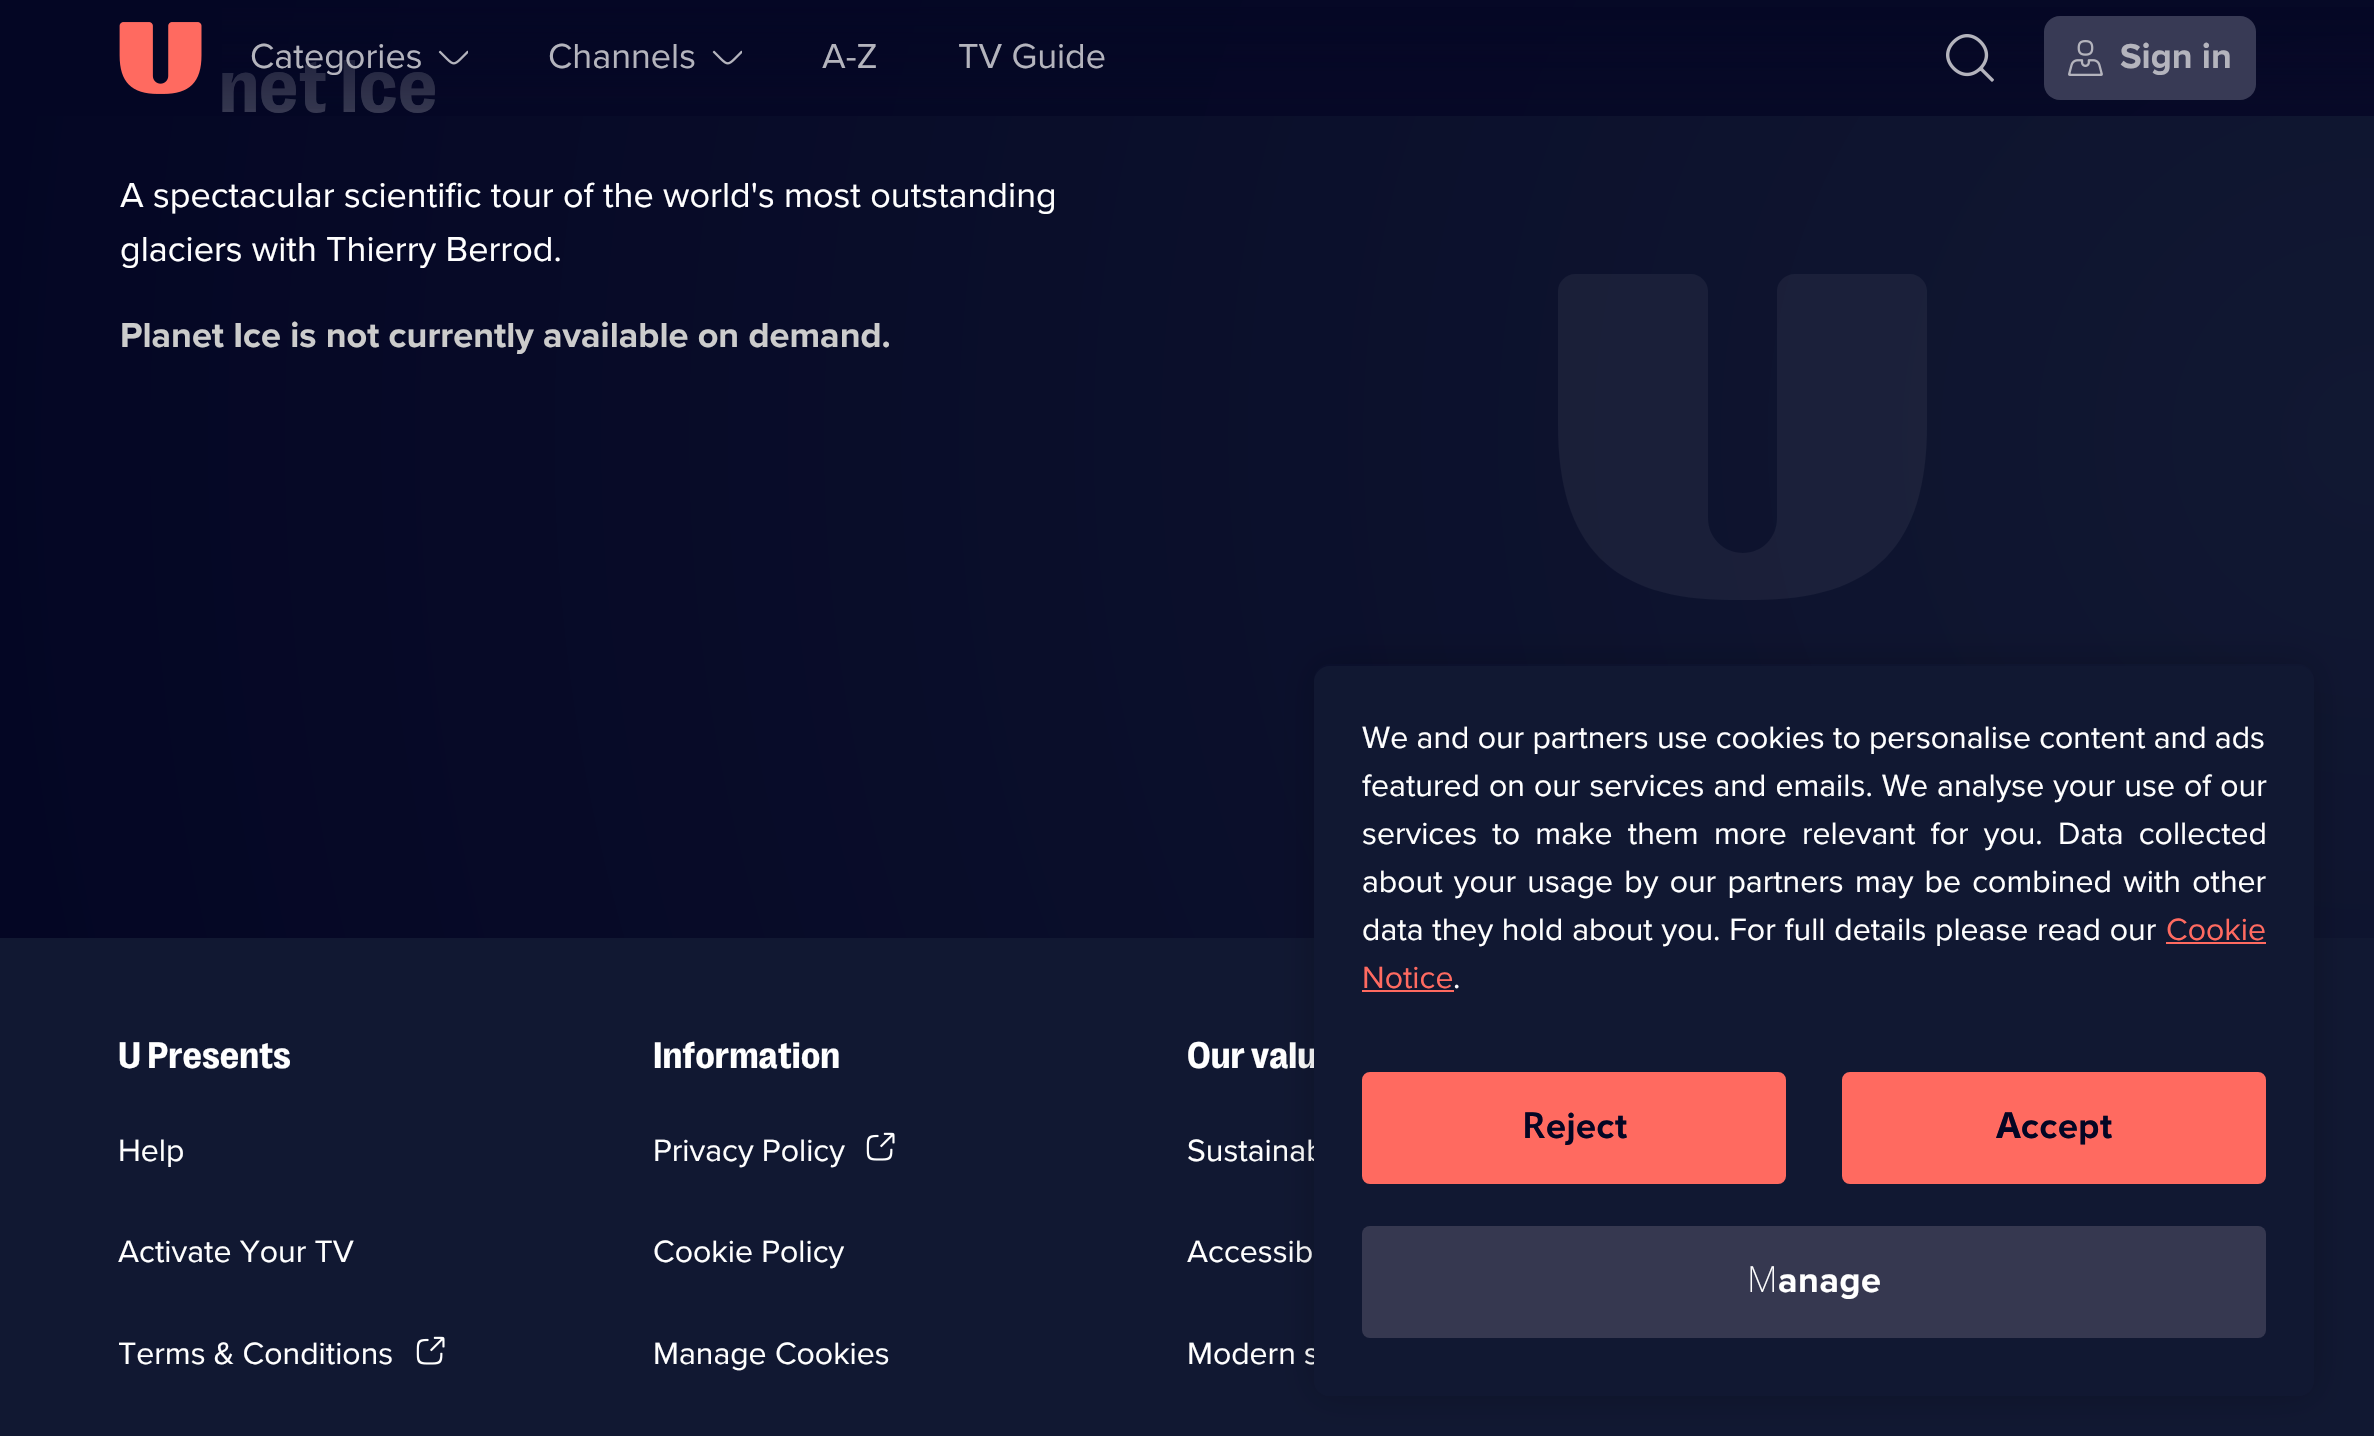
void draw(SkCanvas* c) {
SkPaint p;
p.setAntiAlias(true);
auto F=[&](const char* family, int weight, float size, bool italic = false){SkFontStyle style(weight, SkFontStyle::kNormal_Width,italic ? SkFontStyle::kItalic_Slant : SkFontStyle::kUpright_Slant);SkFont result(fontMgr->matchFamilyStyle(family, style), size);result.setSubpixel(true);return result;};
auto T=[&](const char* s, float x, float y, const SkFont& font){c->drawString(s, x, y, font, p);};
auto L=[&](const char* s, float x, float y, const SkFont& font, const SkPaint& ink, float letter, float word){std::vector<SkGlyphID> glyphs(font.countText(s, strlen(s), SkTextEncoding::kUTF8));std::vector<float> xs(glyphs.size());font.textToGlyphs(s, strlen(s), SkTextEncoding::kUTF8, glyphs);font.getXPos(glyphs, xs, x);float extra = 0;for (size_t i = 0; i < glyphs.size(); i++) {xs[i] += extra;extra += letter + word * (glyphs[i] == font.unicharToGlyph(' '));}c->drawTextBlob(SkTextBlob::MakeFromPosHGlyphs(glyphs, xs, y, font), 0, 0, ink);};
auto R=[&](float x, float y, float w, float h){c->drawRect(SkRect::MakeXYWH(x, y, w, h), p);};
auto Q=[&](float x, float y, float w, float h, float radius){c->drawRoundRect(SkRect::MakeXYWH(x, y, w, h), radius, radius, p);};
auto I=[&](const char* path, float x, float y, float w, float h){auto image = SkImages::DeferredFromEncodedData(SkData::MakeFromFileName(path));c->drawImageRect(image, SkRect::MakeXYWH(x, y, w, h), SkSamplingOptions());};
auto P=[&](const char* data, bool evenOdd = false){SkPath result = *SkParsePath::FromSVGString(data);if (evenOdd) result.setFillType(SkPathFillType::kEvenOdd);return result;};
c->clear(0xff111832);
{
const SkColor colors[] = {0xff070a27,0xff040624};
const float stops[] = {0,1};
p.setShader(SkGradientShader::MakeRadial({2374,438}, 2426, colors, stops, 2, SkTileMode::kClamp));
p.setAlpha(255);
}
R(0,0,2374,116);
auto f1 = F("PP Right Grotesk",700,76);
p.setShader(nullptr);
p.setColor(0xff363850);
T("net Ice",219,112,f1);
{
const SkColor colors[] = {0xcc040624,0x00040624};
const float stops[] = {0,1};
const SkPoint ends[] = {{1187,0}, {1187,116}};
p.setShader(SkGradientShader::MakeLinear(ends, colors, stops, 2, SkTileMode::kClamp));
p.setAlpha(255);
}
R(222,7,2152,102);
I("1.png",119,22,83,72);
auto f2 = F("Proxima Nova",400,36);
p.setShader(nullptr);
p.setColor(0xffb4b4bd);
T("Categories",250,68,f2);
I("2.png",438,50,30,15);
T("Channels",548,68,f2);
I("3.png",712,50,30,15);
T("A-Z",822,68,f2);
T("TV Guide",958,68,f2);
I("4.png",1946,34,48,48);
p.setColor(0xff383a55);
Q(2044,16,212,84,16);
I("5.png",2068,40,35,36);
auto f3 = F("Proxima Nova",700,36);
p.setColor(0xffb4b4bd);
T("Sign in",2120,68,f3);
{
const SkColor colors[] = {0xff111832,0xff040624};
const float stops[] = {0,1};
p.setShader(SkGradientShader::MakeRadial({2374,438}, 2426, colors, stops, 2, SkTileMode::kClamp));
p.setAlpha(255);
}
R(0,116,2374,822);
p.setShader(nullptr);
p.setColor(0x0dffffff);
c->drawPath(P("M1575 274h116c9 0 17 8 17 17v227c0 20 16 35 35 35c19 0 34-15 34-35v-227c0-9 8-17 18-17h115c9 0 17 8 17 17v134c0 121-53 175-173 175h-23c-119 0-173-54-173-175v-134c0-9 8-17 17-17z"),p);
p.setColor(0xffffffff);
T("A spectacular scientific tour of the world's most outstanding",120,207,f2);
T("glaciers with Thierry Berrod.",120,261,f2);
p.setColor(0xffcccccc);
T("Planet Ice is not currently available on demand.",120,347,f3);
auto f4 = F("PP Right Grotesk",700,37.5);
p.setColor(0xffffffff);
T("U Presents",118,1068,f4);
auto f5 = F("Proxima Nova",400,32);
T("Help",118,1161,f5);
T("Activate Your TV",118,1262,f5);
T("Terms & Conditions",118,1364,f5);
I("6.png",416,1336,29,29);
T("Information",653,1068,f4);
T("Privacy Policy",653,1161,f5);
I("6.png",866,1132,29,29);
T("Cookie Policy",653,1262,f5);
T("Manage Cookies",653,1364,f5);
T("Our valu",1187,1068,f4);
T("Sustainab",1187,1161,f5);
T("Accessib",1187,1262,f5);
T("Modern s",1187,1364,f5);
c->save();
c->clipPath(P("M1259 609h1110v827h-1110zm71 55h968c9 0 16 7 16 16v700c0 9-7 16-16 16h-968c-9 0-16-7-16-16v-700c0-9 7-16 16-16z",true),true);
p.setColor(0x33000000);
p.setMaskFilter(SkMaskFilter::MakeBlur(kNormal_SkBlurStyle, 18));
c->drawRoundRect(SkRect::MakeXYWH(1314,664,1000,732),16,16,p);
p.setMaskFilter(nullptr);
c->restore();
p.setColor(0xff111832);
Q(1314,666,1000,730,16);
p.setColor(0xffffffff);
T("We and our partners use cookies to personalise content and ads",1362,748,f5);
L("featured on our services and emails. We analyse your use of our",1362,796,f5,p,0,.75);
L("services to make them more relevant for you. Data collected",1362,844,f5,p,0,7);
L("about your usage by our partners may be combined with other",1362,892,f5,p,0,3);
L("data they hold about you. For full details please read our",1362,940,f5,p,0,.5);
p.setColor(0xffff6a60);
T("Cookie",2166,940,f5);
R(2166,942,100,2);
T("Notice",1362,988,f5);
R(1362,990,92,2);
p.setColor(0xffffffff);
T(".",1453,988,f5);
p.setColor(0xffff6a60);
c->drawRoundRect(SkRect::MakeXYWH(1363,1073,422,110),7,7,p);
p.setStroke(true);
p.setStrokeWidth(2);
c->drawRoundRect(SkRect::MakeXYWH(1363,1073,422,110),7,7,p);
auto f6 = F("Noto Sans",600,36);
p.setStroke(false);
p.setColor(0xff040624);
L("R",1522,1138,f6,p,.5,0);
L("eject",1546,1138,f3,p,.5,0);
p.setColor(0xffff6a60);
c->drawRoundRect(SkRect::MakeXYWH(1843,1073,422,110),7,7,p);
p.setStroke(true);
c->drawRoundRect(SkRect::MakeXYWH(1843,1073,422,110),7,7,p);
auto f7 = F("Noto Sans",700,36);
p.setStroke(false);
p.setColor(0xff040624);
L("A",1996,1138,f7,p,.5,0);
L("ccept",2021,1138,f3,p,.5,0);
p.setColor(0xff363850);
Q(1362,1226,904,112,8);
auto f8 = F("Noto Sans",200,36);
p.setColor(0xffffffff);
L("M",1747,1292,f8,p,.5,0);
L("anage",1778,1292,f3,p,.5,0);
}
